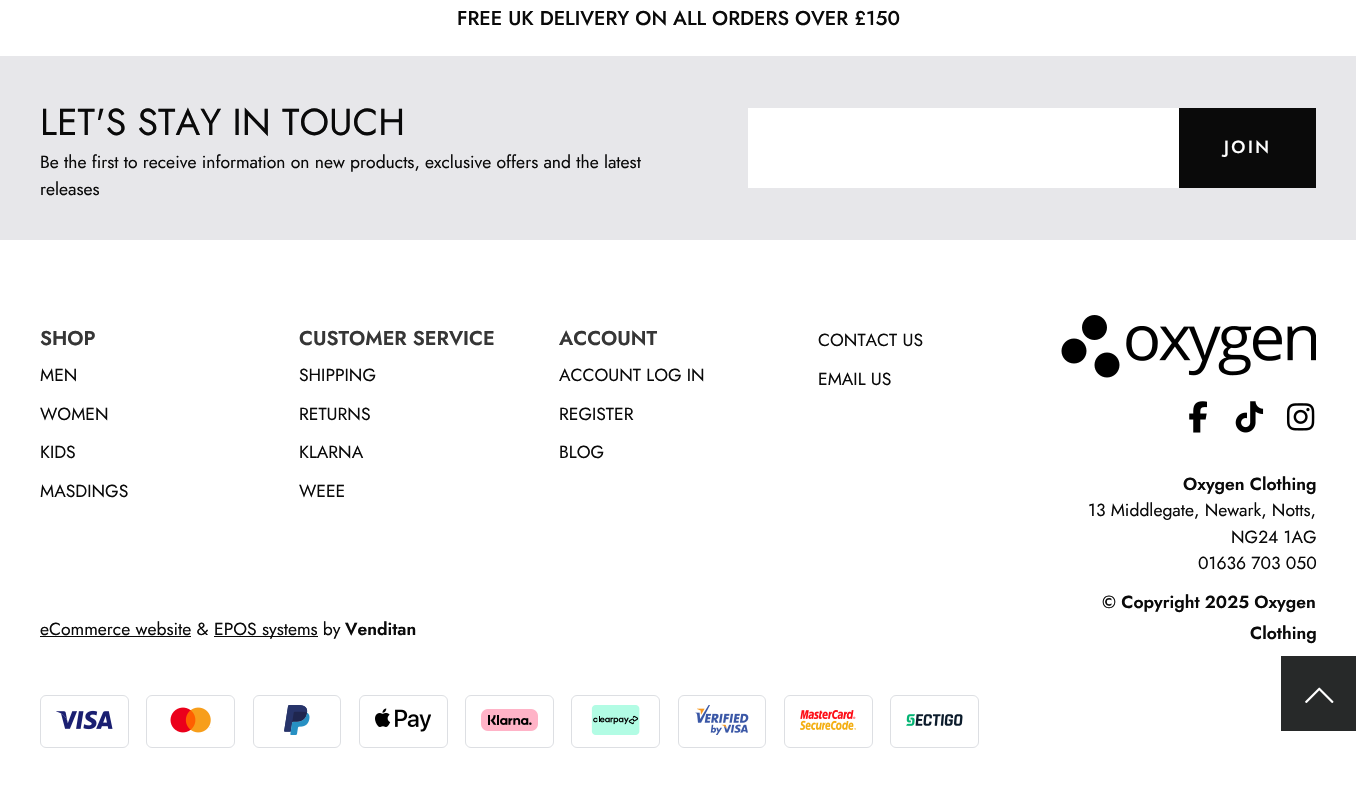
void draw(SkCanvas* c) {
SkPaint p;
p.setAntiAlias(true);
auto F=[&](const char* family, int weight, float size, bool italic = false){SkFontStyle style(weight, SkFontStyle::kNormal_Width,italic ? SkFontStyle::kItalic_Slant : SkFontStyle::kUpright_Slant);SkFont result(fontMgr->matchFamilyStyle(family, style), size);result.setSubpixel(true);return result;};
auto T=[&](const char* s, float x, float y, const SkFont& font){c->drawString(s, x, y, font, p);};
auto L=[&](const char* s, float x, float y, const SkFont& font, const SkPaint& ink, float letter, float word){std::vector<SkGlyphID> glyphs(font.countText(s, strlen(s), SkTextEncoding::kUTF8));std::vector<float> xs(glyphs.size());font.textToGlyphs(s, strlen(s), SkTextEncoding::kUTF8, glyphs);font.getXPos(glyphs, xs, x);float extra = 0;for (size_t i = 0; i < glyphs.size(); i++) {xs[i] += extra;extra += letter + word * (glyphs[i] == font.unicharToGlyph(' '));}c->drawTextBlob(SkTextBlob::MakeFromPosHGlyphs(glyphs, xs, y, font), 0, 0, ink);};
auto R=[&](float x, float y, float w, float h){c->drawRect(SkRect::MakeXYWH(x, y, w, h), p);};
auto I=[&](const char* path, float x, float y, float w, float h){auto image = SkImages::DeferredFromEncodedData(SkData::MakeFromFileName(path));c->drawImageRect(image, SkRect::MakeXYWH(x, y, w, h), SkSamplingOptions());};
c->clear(0xffffffff);
auto f1 = F("Jost",500,20);
p.setColor(0xff0a0a0a);
T("FREE UK DELIVERY ON ALL ORDERS OVER £150",457,25,f1);
p.setColor(0xffe7e7ea);
R(0,56,1356,184);
auto f2 = F("Jost",400,37.5);
p.setColor(0xff0a0a0a);
T("LET'S STAY IN TOUCH",40,135,f2);
auto f3 = F("Jost",400,17.5);
T("Be the first to receive information on new products, exclusive offers and the latest",40,168,f3);
T("releases",40,195,f3);
p.setColor(0xffffffff);
R(748,108,431,80);
p.setColor(0xff0a0a0a);
R(1179,108,137,80);
auto f4 = F("Jost",500,17.5);
p.setColor(0xffffffff);
L("JOIN",1224,153,f4,p,2.5,0);
auto f5 = F("Jost",600,20);
p.setColor(0xff363636);
T("SHOP",40,345,f5);
p.setColor(0xff0a0a0a);
T("MEN",40,381,f3);
T("WOMEN",40,420,f3);
T("KIDS",40,458,f3);
T("MASDINGS",40,497,f3);
p.setColor(0xff363636);
T("CUSTOMER SERVICE",299,345,f5);
p.setColor(0xff0a0a0a);
T("SHIPPING",299,381,f3);
T("RETURNS",299,420,f3);
T("KLARNA",299,458,f3);
T("WEEE",299,497,f3);
p.setColor(0xff363636);
T("ACCOUNT",559,345,f5);
p.setColor(0xff0a0a0a);
T("ACCOUNT LOG IN",559,381,f3);
T("REGISTER",559,420,f3);
T("BLOG",559,458,f3);
T("CONTACT US",818,346,f3);
T("EMAIL US",818,385,f3);
T("eCommerce website &",40,635,f3);
R(40,636,151,1);
R(214,636,104,1);
T("EPOS systems by",214,635,f3);
auto f6 = F("Jost",600,17.5);
T("Venditan",345,635,f6);
p.setStroke(true);
p.setStrokeWidth(1);
p.setColor(0xffdddfe3);
c->drawRoundRect(SkRect::MakeXYWH(40.5,695.5,88,52),5.5,5.5,p);
I("1.png",56,710,57,20);
c->drawRoundRect(SkRect::MakeXYWH(146.5,695.5,88,52),5.5,5.5,p);
I("2.png",170,707,41,26);
c->drawRoundRect(SkRect::MakeXYWH(253.5,695.5,87,52),5.5,5.5,p);
I("3.png",284,705,26,30);
c->drawRoundRect(SkRect::MakeXYWH(359.5,695.5,88,52),5.5,5.5,p);
I("4.png",375,708,56,24);
c->drawRoundRect(SkRect::MakeXYWH(465.5,695.5,88,52),5.5,5.5,p);
I("5.png",481,709,57,22);
c->drawRoundRect(SkRect::MakeXYWH(571.5,695.5,88,52),5.5,5.5,p);
I("6.png",591,705,49,30);
c->drawRoundRect(SkRect::MakeXYWH(678.5,695.5,87,52),5.5,5.5,p);
I("7.png",695,705,54,30);
c->drawRoundRect(SkRect::MakeXYWH(784.5,695.5,88,52),5.5,5.5,p);
I("8.png",800,710,56,20);
c->drawRoundRect(SkRect::MakeXYWH(890.5,695.5,88,52),5.5,5.5,p);
I("9.png",906,714,57,12);
I("10.png",1061,315,255,63);
I("11.png",1189,401,18,32);
I("12.png",1235,401,29,32);
I("13.png",1286,403,29,28);
p.setStroke(false);
p.setColor(0xff0a0a0a);
T("Oxygen Clothing",1183,490,f6);
T("13 Middlegate, Newark, Notts,",1088,516,f3);
T("NG24 1AG",1231,543,f3);
T("01636 703 050",1198,569,f3);
T("© Copyright 2025 Oxygen",1102,608,f6);
T("Clothing",1250,639,f6);
p.setColor(0xff272929);
R(1281,656,75,75);
I("14.png",1305,687,29,16);
}
